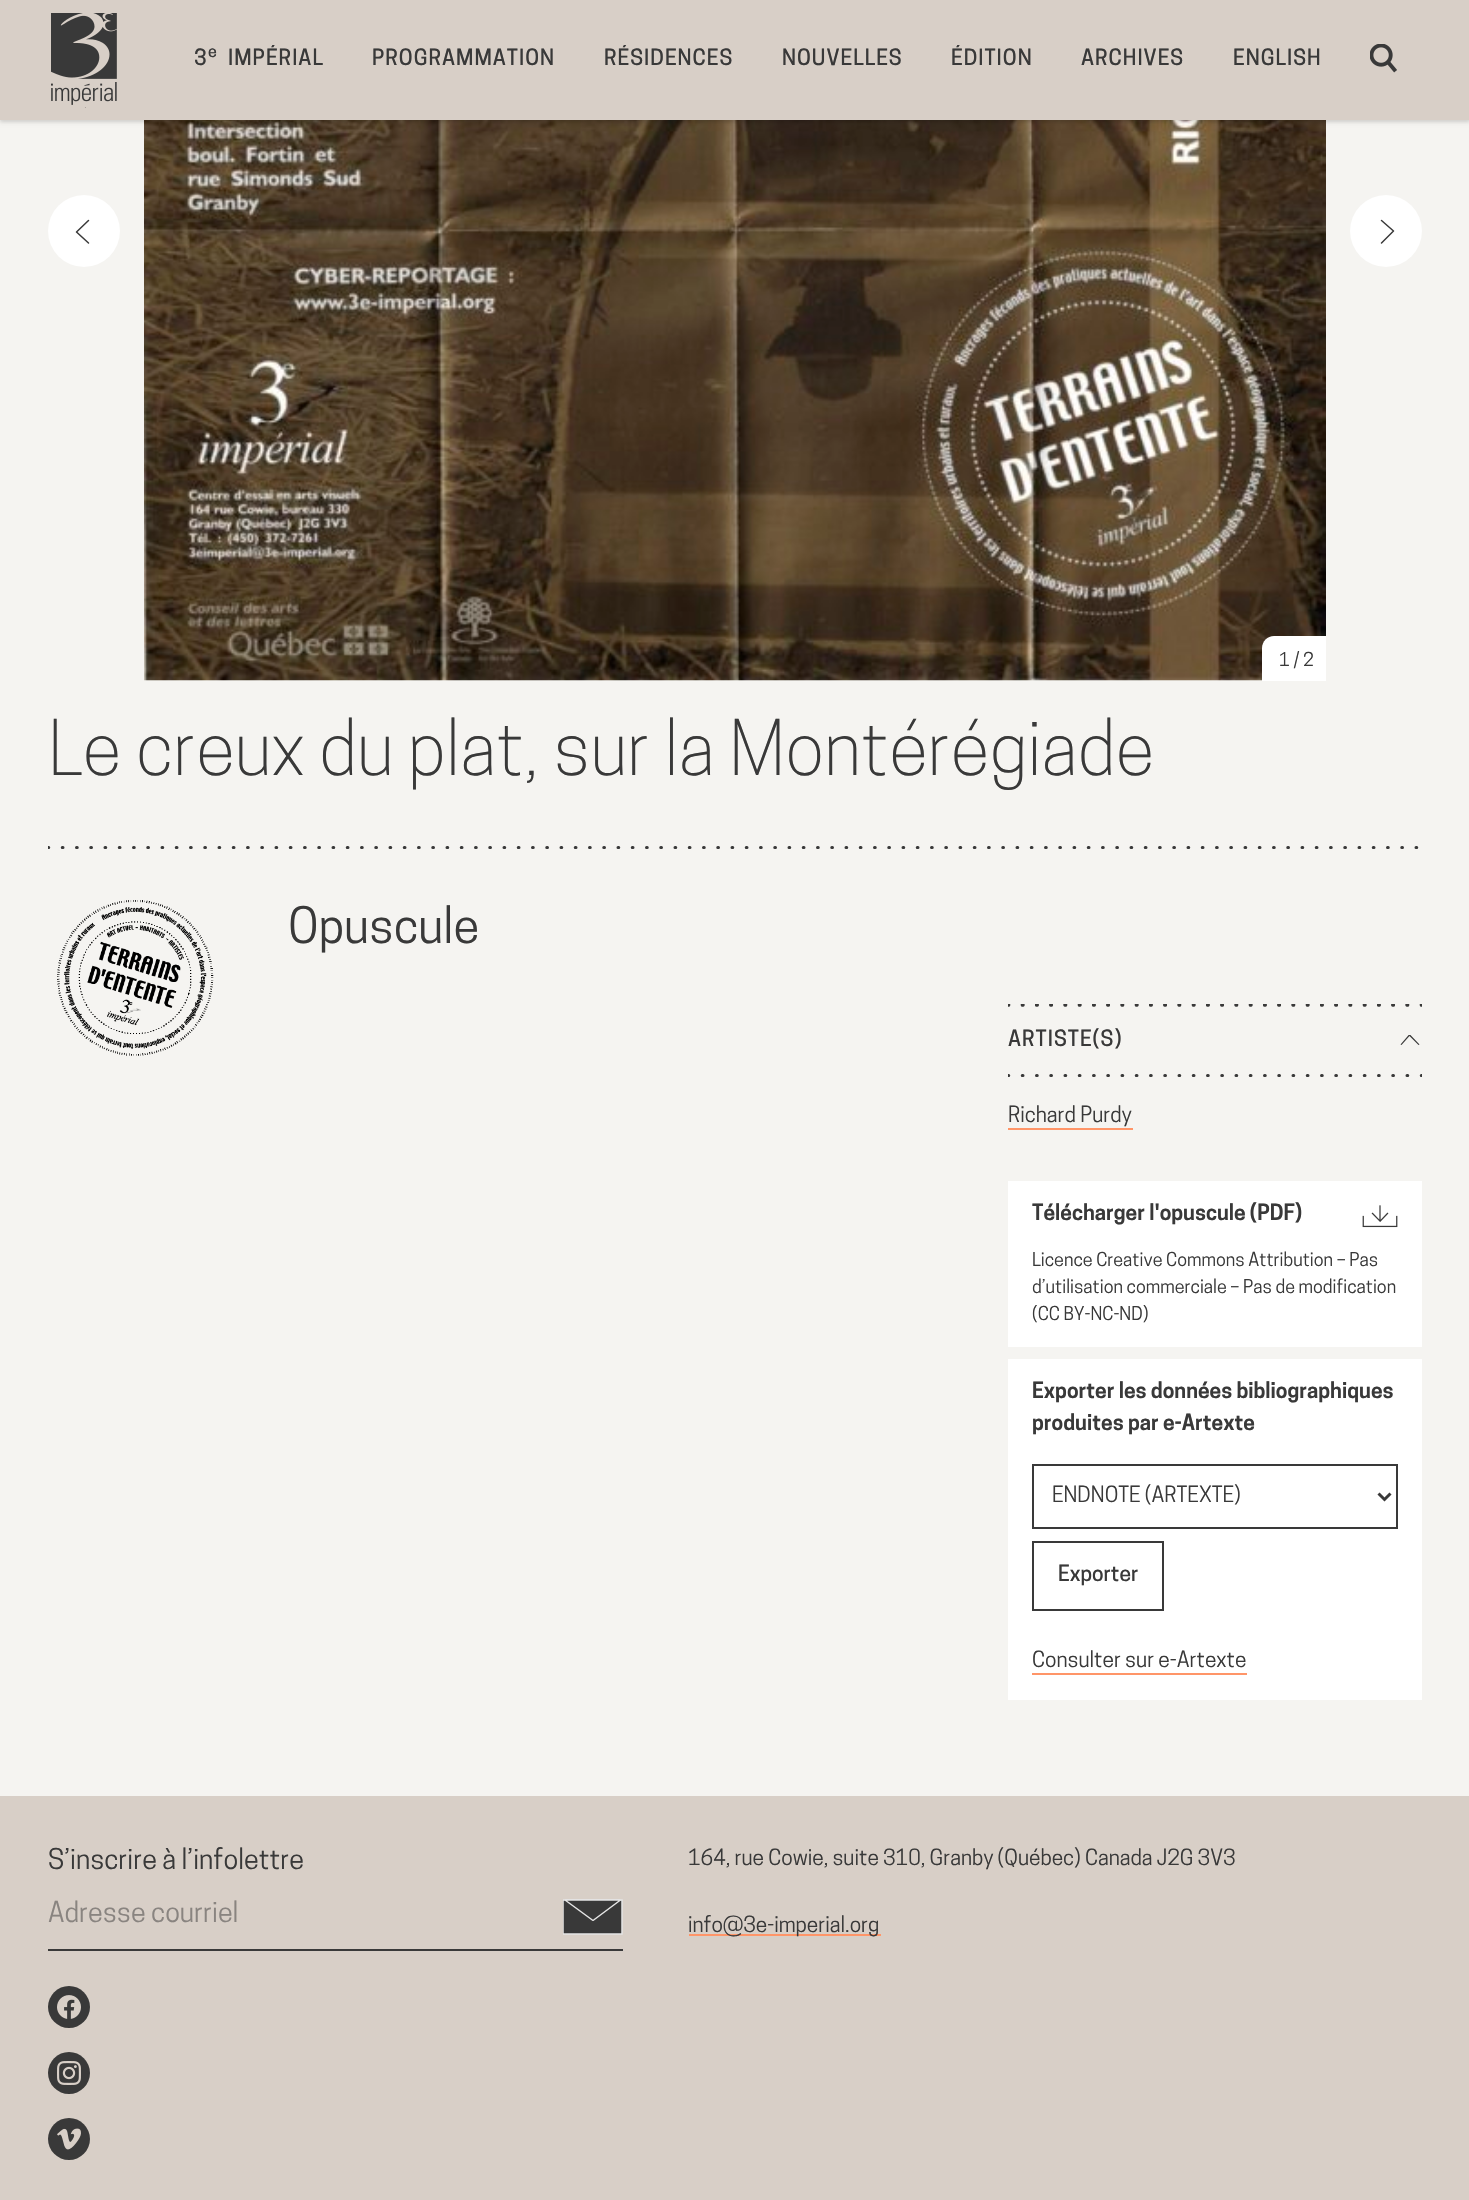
void draw(SkCanvas* c) {
SkPaint p;
p.setAntiAlias(true);
auto F=[&](const char* family, int weight, float size, bool italic = false){SkFontStyle style(weight, SkFontStyle::kNormal_Width,italic ? SkFontStyle::kItalic_Slant : SkFontStyle::kUpright_Slant);SkFont result(fontMgr->matchFamilyStyle(family, style), size);result.setSubpixel(true);return result;};
auto T=[&](const char* s, float x, float y, const SkFont& font){c->drawString(s, x, y, font, p);};
auto L=[&](const char* s, float x, float y, const SkFont& font, const SkPaint& ink, float letter, float word){std::vector<SkGlyphID> glyphs(font.countText(s, strlen(s), SkTextEncoding::kUTF8));std::vector<float> xs(glyphs.size());font.textToGlyphs(s, strlen(s), SkTextEncoding::kUTF8, glyphs);font.getXPos(glyphs, xs, x);float extra = 0;for (size_t i = 0; i < glyphs.size(); i++) {xs[i] += extra;extra += letter + word * (glyphs[i] == font.unicharToGlyph(' '));}c->drawTextBlob(SkTextBlob::MakeFromPosHGlyphs(glyphs, xs, y, font), 0, 0, ink);};
auto R=[&](float x, float y, float w, float h){c->drawRect(SkRect::MakeXYWH(x, y, w, h), p);};
auto I=[&](const char* path, float x, float y, float w, float h){auto image = SkImages::DeferredFromEncodedData(SkData::MakeFromFileName(path));c->drawImageRect(image, SkRect::MakeXYWH(x, y, w, h), SkSamplingOptions());};
auto P=[&](const char* data, bool evenOdd = false){SkPath result = *SkParsePath::FromSVGString(data);if (evenOdd) result.setFillType(SkPathFillType::kEvenOdd);return result;};
c->clear(0xffd8cfc7);
p.setColor(0xfff5f4f1);
R(0,120,1469,1676);
I("3.png",144,120,1182,561);
p.setColor(0x0f000000);
p.setMaskFilter(SkMaskFilter::MakeBlur(kNormal_SkBlurStyle, 1.5));
c->drawRect(SkRect::MakeXYWH(0,2,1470,120),p);
p.setMaskFilter(nullptr);
p.setColor(0x1a000000);
p.setMaskFilter(SkMaskFilter::MakeBlur(kNormal_SkBlurStyle, 2));
c->drawRect(SkRect::MakeXYWH(0,2,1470,120),p);
p.setMaskFilter(nullptr);
p.setColor(0xffd8cfc7);
R(0,0,1469,120);
I("1.png",51,13,66,95);
auto f1 = F("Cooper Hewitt",500,21);
p.setColor(0xff393939);
L("3",194,65,f1,p,1,0);
auto f2 = F("Cooper Hewitt",500,16);
L("e",208,57,f2,p,1,0);
L("IMPÉRIAL",228,65,f1,p,1,0);
L("PROGRAMMATION",372,65,f1,p,1,0);
L("RÉSIDENCES",604,65,f1,p,1,0);
L("NOUVELLES",782,65,f1,p,1,0);
L("ÉDITION",951,65,f1,p,1,0);
L("ARCHIVES",1081,65,f1,p,1,0);
L("ENGLISH",1233,65,f1,p,1,0);
I("2.png",1370,44,27,29);
p.setColor(0xffffffff);
c->drawCircle(84,231,36,p);
p.setStroke(true);
p.setStrokeWidth(1.5);
p.setStrokeCap(SkPaint::kRound_Cap);
p.setStrokeJoin(SkPaint::kRound_Join);
p.setColor(0xff393939);
c->drawPath(P("M88.5 220.5l-12 11.5l12 11"),p);
p.setStroke(false);
p.setColor(0xffffffff);
c->drawCircle(1386,231,36,p);
p.setStroke(true);
p.setColor(0xff393939);
c->drawPath(P("M1381.5 243l12-12l-12-10.5"),p);
p.setStroke(false);
p.setColor(0xffffffff);
c->drawPath(P("M1274 636h52v45h-64v-33c0-6.5 5.5-12 12-12z"),p);
auto f3 = F("Cooper Hewitt",400,18);
p.setColor(0xff393939);
T("1 / 2",1279,666,f3);
auto f4 = F("Cooper Hewitt",300,72);
T("Le creux du plat, sur la Montérégiade",48,775,f4);
c->save();
c->clipRect(SkRect::MakeXYWH(48,846,1374,3));
p.setStroke(true);
p.setStrokeWidth(3);
p.setPathEffect(SkDashPathEffect::Make({{0.75f,13.5f}}, 0));
c->drawPath(P("M48 847.5h1374"),p);
p.setPathEffect(nullptr);
c->restore();
I("4.png",57,900,157,156);
auto f5 = F("Cooper Hewitt",400,47.25);
p.setStroke(false);
T("Opuscule",288,943,f5);
c->save();
c->clipRect(SkRect::MakeXYWH(1008,1004,414,3));
p.setStroke(true);
p.setPathEffect(SkDashPathEffect::Make({{0.75f,13.5f}}, 0));
c->drawPath(P("M1008 1005h414"),p);
p.setPathEffect(nullptr);
p.setPathEffect(SkDashPathEffect::Make({{0.75f,13.5f}}, 0));
c->drawPath(P("M1008 1005h414"),p);
p.setPathEffect(nullptr);
c->restore();
p.setStroke(false);
L("ARTISTE(S)",1008,1046,f1,p,1,0);
c->save();
c->clipRect(SkRect::MakeXYWH(1398,1035,24,11));
c->drawPath(P("M1419.5 1044.5l-1 .5l-9-9l-8 9l-1-.5l9-10.5z",true),p);
c->restore();
c->save();
c->clipRect(SkRect::MakeXYWH(1008,1074,414,3));
p.setStroke(true);
p.setPathEffect(SkDashPathEffect::Make({{0.75f,13.5f}}, 0));
c->drawPath(P("M1008 1075.5h414"),p);
p.setPathEffect(nullptr);
c->restore();
auto f6 = F("Cooper Hewitt",400,21);
p.setStroke(false);
T("Richard Purdy",1008,1122,f6);
p.setColor(0xffff9568);
R(1008,1128,125,2);
p.setColor(0xffffffff);
R(1008,1181,414,166);
auto f7 = F("Cooper Hewitt",600,21);
p.setColor(0xff393939);
T("Télécharger l'opuscule (PDF)",1032,1220,f7);
I("5.png",1362,1205,36,23);
T("Licence Creative Commons Attribution – Pas",1032,1266,f3);
T("d’utilisation commerciale – Pas de modification",1032,1293,f3);
T("(CC BY-NC-ND)",1032,1320,f3);
p.setColor(0xffffffff);
R(1008,1359,414,341);
p.setColor(0xff393939);
T("Exporter les données bibliographiques",1032,1398,f7);
T("produites par e-Artexte",1032,1430,f7);
p.setStroke(true);
p.setStrokeWidth(2);
p.setStrokeCap(SkPaint::kButt_Cap);
p.setStrokeJoin(SkPaint::kMiter_Join);
c->drawRect(SkRect::MakeXYWH(1033,1465,364,63),p);
p.setStrokeWidth(3);
c->drawPath(P("M1378.5 1493.5l6 6l6-6"),p);
p.setStroke(false);
T("ENDNOTE (ARTEXTE)",1052,1502,f6);
p.setStroke(true);
p.setStrokeWidth(2);
c->drawRect(SkRect::MakeXYWH(1033,1542,130,68),p);
p.setStroke(false);
T("Exporter",1058,1581,f1);
T("Consulter sur e-Artexte",1032,1667,f6);
p.setColor(0xffff9568);
R(1032,1673,215,2);
auto f8 = F("Cooper Hewitt",400,27);
p.setColor(0xff393939);
T("S’inscrire à l’infolettre",48,1869,f8);
R(48,1949,575,2);
p.setColor(0xff898480);
T("Adresse courriel",48,1922,f8);
p.setColor(0xff393939);
R(563,1900,59,34);
c->save();
c->clipRect(SkRect::MakeXYWH(563,1899,60,36));
p.setStroke(true);
p.setStrokeWidth(1.5);
p.setColor(0xffe5e5e5);
c->drawPath(P("M563 1900h59v34h-59z"),p);
c->restore();
p.setStroke(false);
p.setColor(0xff393939);
c->drawPath(P("M620 1900l-27 21l-28-21z"),p);
p.setStroke(true);
p.setStrokeCap(SkPaint::kSquare_Cap);
p.setStrokeJoin(SkPaint::kBevel_Join);
p.setColor(0xffe5e5e5);
c->drawPath(P("M620.5 1900l-27.5 20.5l-28-20.5z"),p);
p.setStroke(false);
p.setColor(0xff393939);
T("164, rue Cowie, suite 310, Granby (Québec) Canada J2G 3V3",688,1865,f6);
p.setColor(0xffff9568);
R(689,1934,192,2);
p.setColor(0xff393939);
T("info@3e-imperial.org",688,1932,f6);
c->drawCircle(69,2007,21,p);
I("6.png",57,1995,24,24);
c->drawCircle(69,2073,21,p);
I("7.png",57,2061,24,24);
c->drawCircle(69,2139,21,p);
I("8.png",57,2128,24,22);
}
